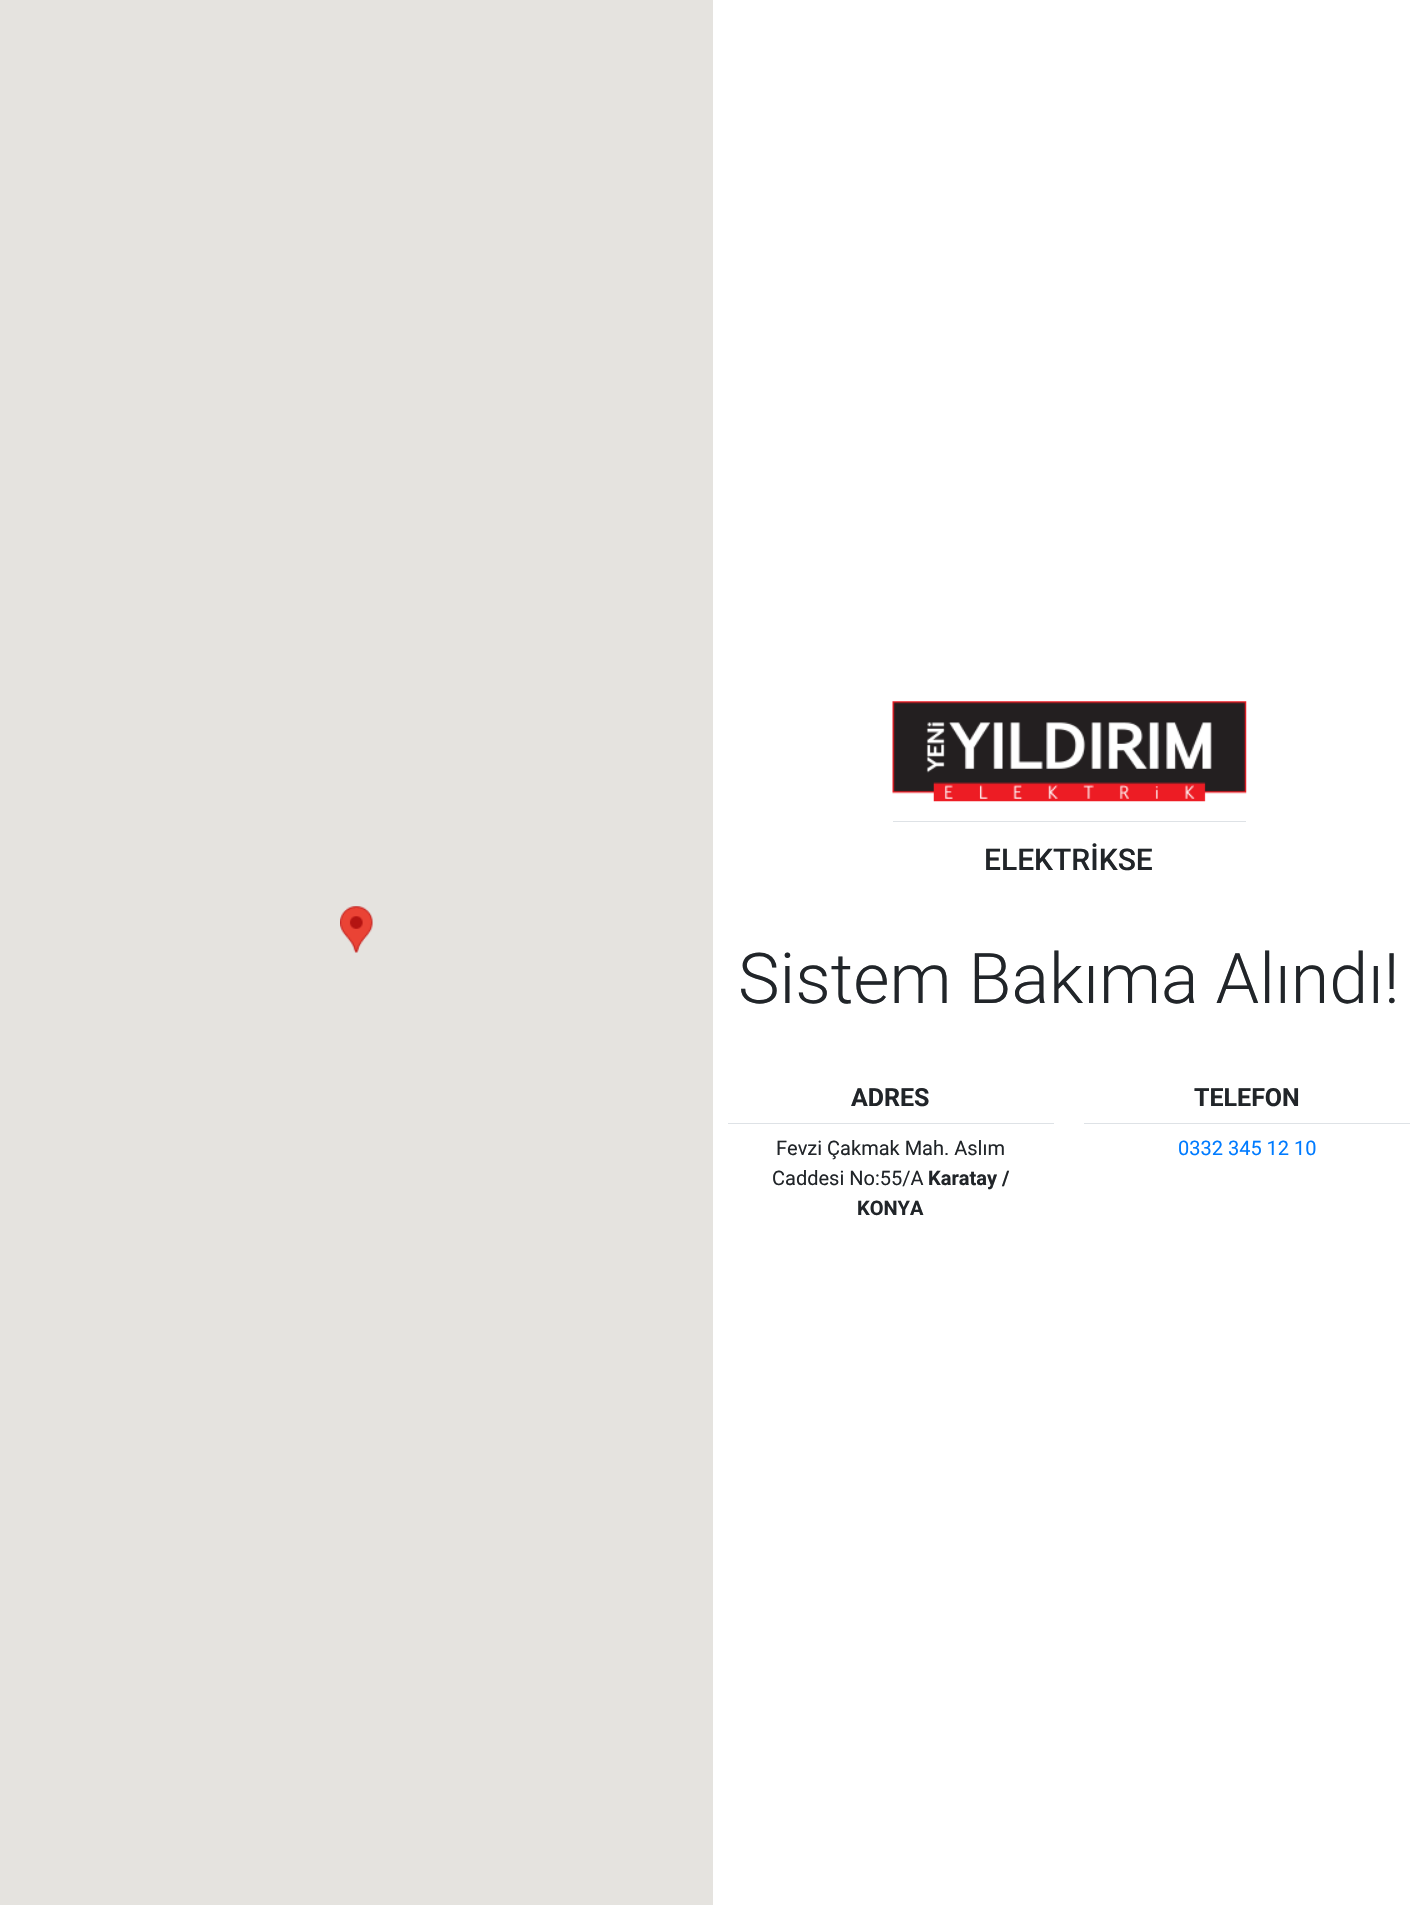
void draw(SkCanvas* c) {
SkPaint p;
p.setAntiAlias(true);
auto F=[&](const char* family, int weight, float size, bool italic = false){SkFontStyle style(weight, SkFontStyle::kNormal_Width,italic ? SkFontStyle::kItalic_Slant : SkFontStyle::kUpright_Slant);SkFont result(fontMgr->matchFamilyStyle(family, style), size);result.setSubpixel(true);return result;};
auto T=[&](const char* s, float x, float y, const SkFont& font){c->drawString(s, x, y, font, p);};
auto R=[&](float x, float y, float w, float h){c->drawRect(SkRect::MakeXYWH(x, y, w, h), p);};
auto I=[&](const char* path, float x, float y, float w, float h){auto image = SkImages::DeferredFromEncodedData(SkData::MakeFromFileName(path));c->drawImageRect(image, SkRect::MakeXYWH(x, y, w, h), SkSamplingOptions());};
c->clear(0xffffffff);
p.setColor(0xffe5e3df);
R(0,0,713,1905);
I("1.png",340,906,33,47);
p.setColor(0xffdee2e6);
R(893,821,353,1);
I("2.png",892,701,355,101);
auto f1 = F("Roboto",500,30);
p.setColor(0xff212529);
T("ELEKTRİKSE",984,870,f1);
auto f2 = F("Roboto",300,70);
T("Sistem Bakıma Alındı!",738,1003,f2);
p.setColor(0xffdee2e6);
R(728,1123,326,1);
auto f3 = F("Roboto",700,25);
p.setColor(0xff212529);
T("ADRES",851,1106,f3);
auto f4 = F("Roboto",400,20);
T("Fevzi Çakmak Mah. Aslım",776,1155,f4);
T("Caddesi No:55/A",772,1185,f4);
auto f5 = F("Roboto",700,20);
T("Karatay /",928,1185,f5);
T("KONYA",857,1215,f5);
p.setColor(0xffdee2e6);
R(1084,1123,326,1);
p.setColor(0xff212529);
T("TELEFON",1194,1106,f3);
p.setColor(0xff007bff);
T("0332 345 12 10",1178,1155,f4);
}
